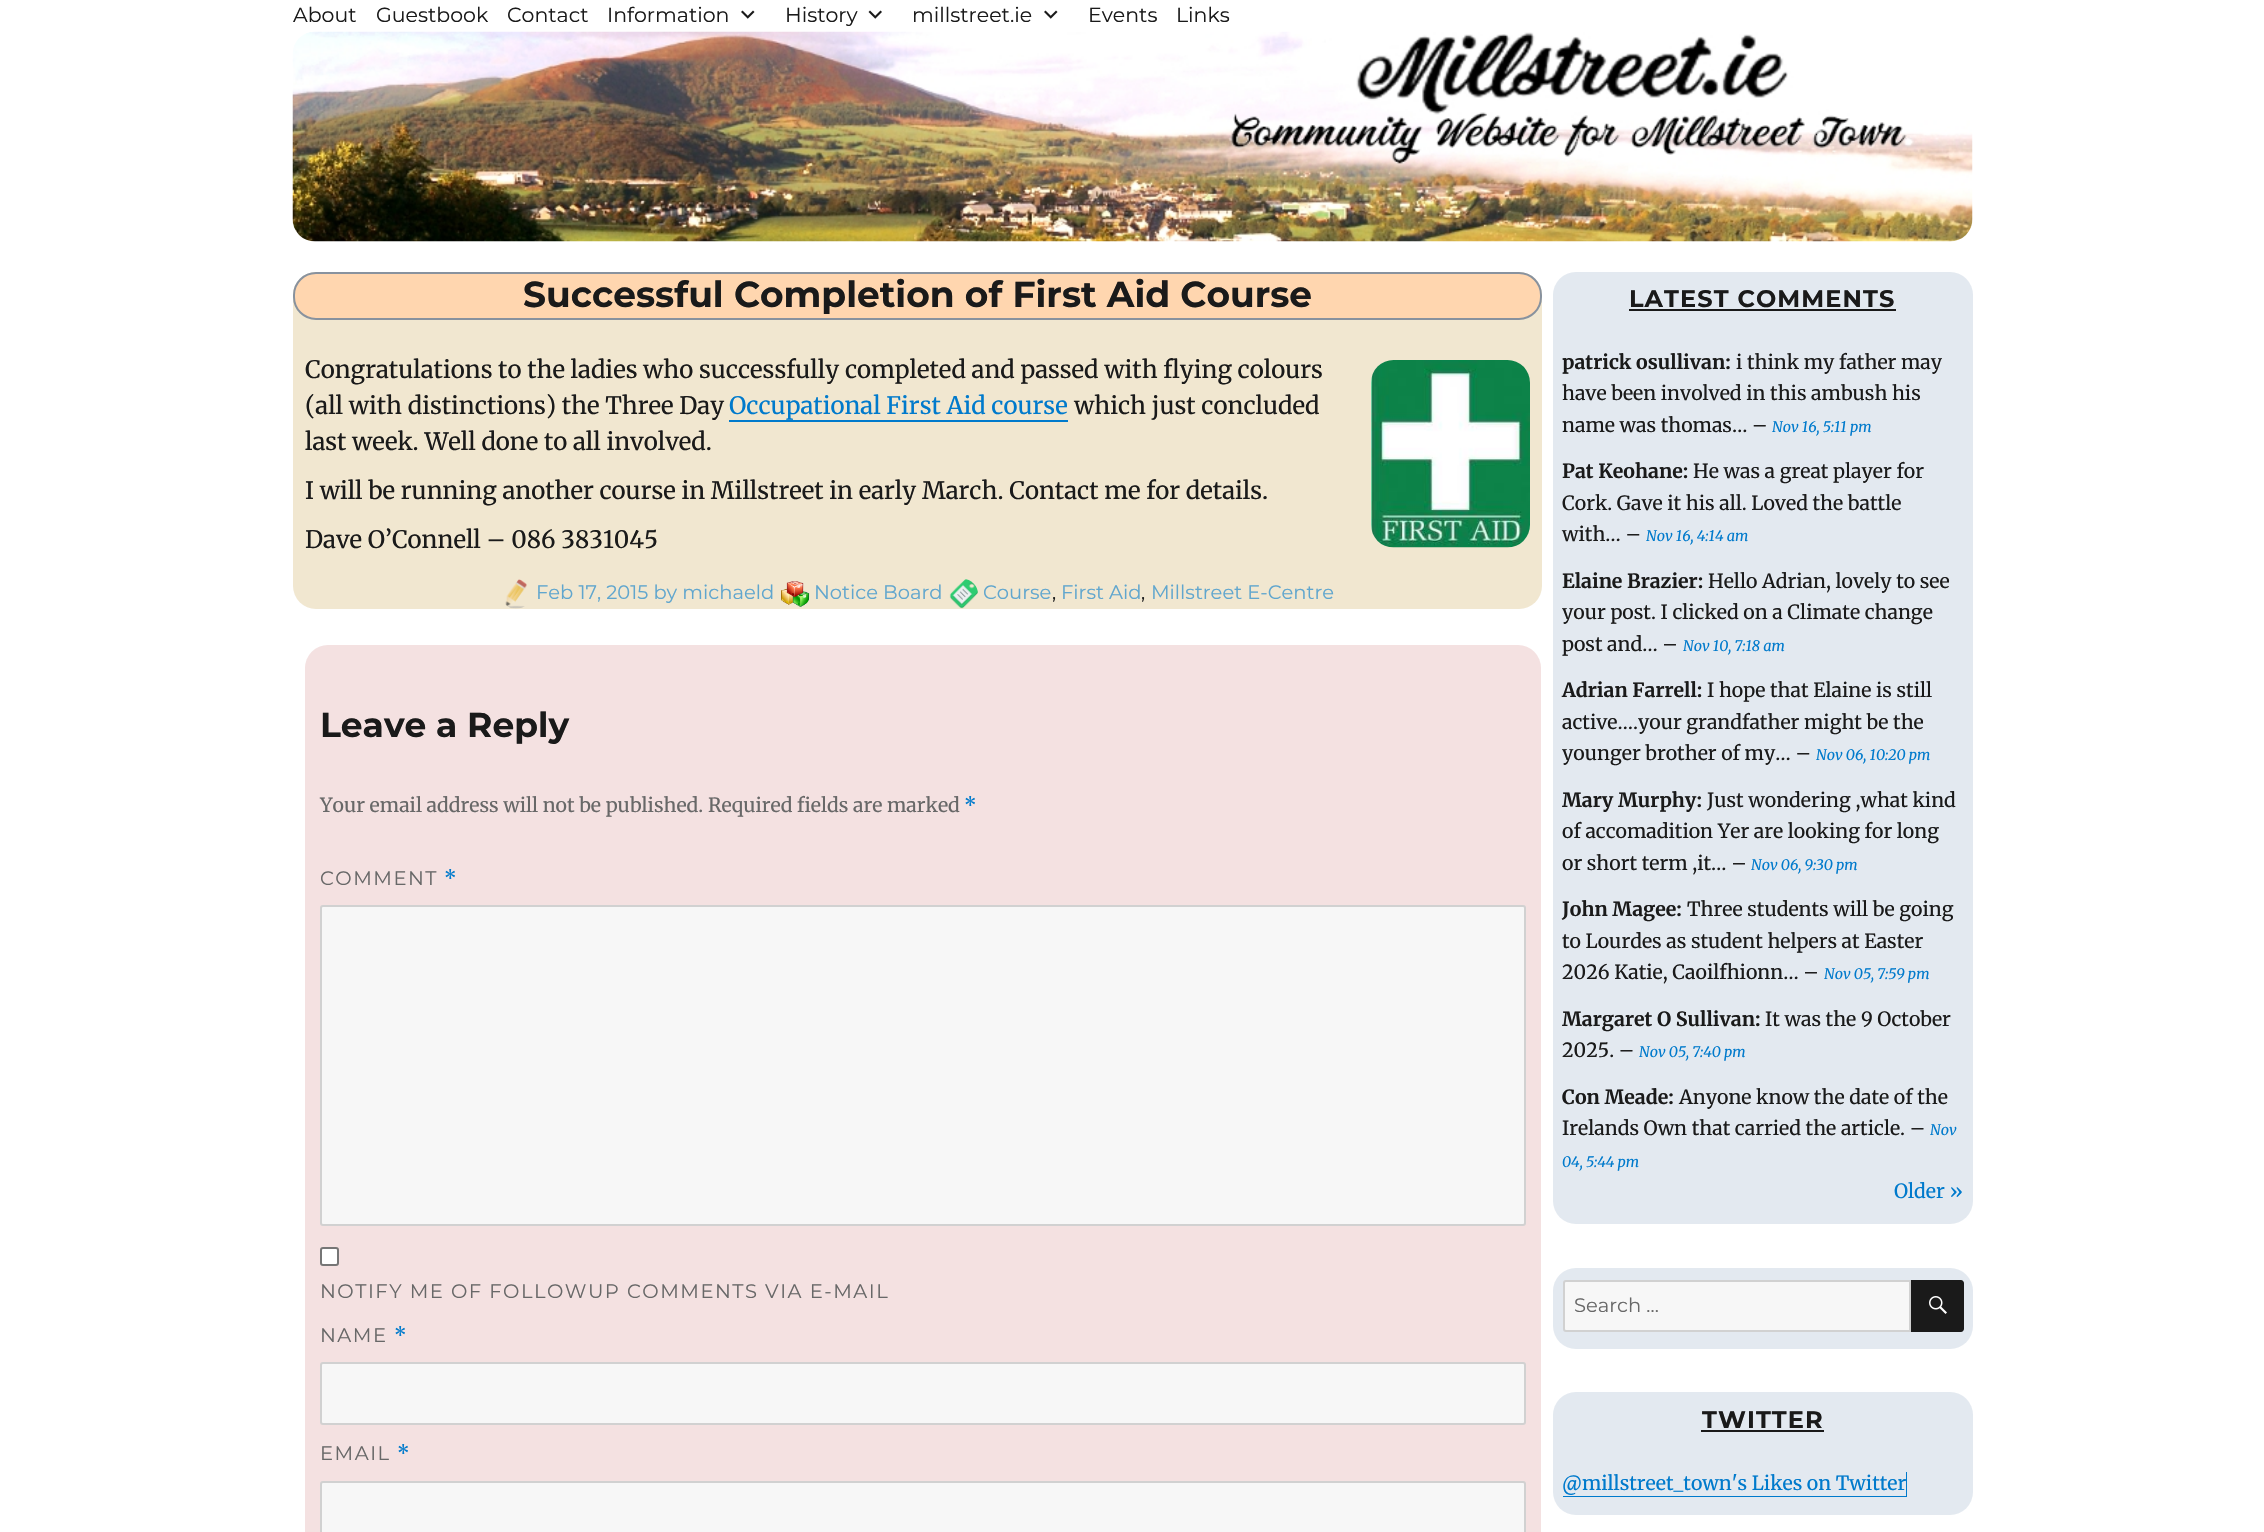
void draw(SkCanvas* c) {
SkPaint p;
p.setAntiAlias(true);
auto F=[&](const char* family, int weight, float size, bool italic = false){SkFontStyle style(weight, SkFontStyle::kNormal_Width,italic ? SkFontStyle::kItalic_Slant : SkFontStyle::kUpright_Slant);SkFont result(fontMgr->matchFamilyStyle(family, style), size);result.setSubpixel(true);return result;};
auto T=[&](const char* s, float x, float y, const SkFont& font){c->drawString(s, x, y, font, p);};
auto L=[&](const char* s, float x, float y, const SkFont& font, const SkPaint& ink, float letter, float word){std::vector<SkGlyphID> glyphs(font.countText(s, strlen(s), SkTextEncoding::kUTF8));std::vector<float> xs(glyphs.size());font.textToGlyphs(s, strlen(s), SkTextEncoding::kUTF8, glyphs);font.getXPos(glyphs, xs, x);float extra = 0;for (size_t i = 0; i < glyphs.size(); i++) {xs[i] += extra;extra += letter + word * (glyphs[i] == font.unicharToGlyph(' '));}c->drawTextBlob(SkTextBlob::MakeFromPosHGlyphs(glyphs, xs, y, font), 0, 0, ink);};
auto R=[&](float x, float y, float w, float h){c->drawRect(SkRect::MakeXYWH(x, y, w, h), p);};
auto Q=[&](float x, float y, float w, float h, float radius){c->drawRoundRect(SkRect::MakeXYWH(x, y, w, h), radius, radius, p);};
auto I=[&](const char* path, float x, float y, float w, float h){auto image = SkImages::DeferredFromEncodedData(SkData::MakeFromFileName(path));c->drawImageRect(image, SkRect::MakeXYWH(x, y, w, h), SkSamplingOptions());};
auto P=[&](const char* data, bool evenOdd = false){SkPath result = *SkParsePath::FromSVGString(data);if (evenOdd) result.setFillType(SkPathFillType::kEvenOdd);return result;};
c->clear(0xffffffff);
auto f1 = F("Montserrat",400,20.5);
p.setColor(0xff1a1a1a);
T("About",293,22,f1);
T("Guestbook",376,22,f1);
T("Contact",507,22,f1);
T("Information",607,22,f1);
I("1.png",741,10,14,9);
T("History",785,22,f1);
I("2.png",868,10,14,9);
T("millstreet.ie",912,22,f1);
I("1.png",1044,10,14,9);
T("Events",1088,22,f1);
T("Links",1176,22,f1);
I("3.png",292,31,1681,211);
p.setColor(0xfff1e7d0);
Q(293,272,1249,337,23);
p.setColor(0xffffd6af);
c->drawRoundRect(SkRect::MakeXYWH(294,273,1247,46),22,22,p);
p.setStroke(true);
p.setStrokeWidth(2);
p.setColor(0xff88929e);
c->drawRoundRect(SkRect::MakeXYWH(294,273,1247,46),22,22,p);
auto f2 = F("Montserrat",700,36);
p.setStroke(false);
p.setColor(0xff1a1a1a);
T("Successful Completion of First Aid Course",523,307,f2);
auto f3 = F("Merriweather",400,24);
T("Congratulations to the ladies who successfully completed and passed with flying colours",305,378,f3);
I("4.png",1371,360,159,188);
T("(all with distinctions) the Three Day",305,414,f3);
p.setColor(0xff007acc);
T("Occupational First Aid course",729,414,f3);
R(729,420,339,2);
p.setColor(0xff1a1a1a);
T("which just concluded",1074,414,f3);
T("last week. Well done to all involved.",305,450,f3);
T("I will be running another course in Millstreet in early March. Contact me for details.",305,499,f3);
T("Dave O’Connell – 086 3831045",305,548,f3);
I("5.png",505,579,22,30);
auto f4 = F("Montserrat",400,19.5);
p.setColor(0xff60a6ce);
T("Feb 17, 2015 by michaeld",536,599,f4);
I("6.png",781,581,29,26);
T("Notice Board",814,599,f4);
I("7.png",949,579,29,30);
T("Course",983,599,f4);
p.setColor(0xff1a1a1a);
T(",",1052,599,f4);
p.setColor(0xff60a6ce);
T("First Aid",1061,599,f4);
p.setColor(0xff1a1a1a);
T(",",1141,599,f4);
p.setColor(0xff60a6ce);
T("Millstreet E-Centre",1151,599,f4);
p.setColor(0xfff4e1e1);
Q(305,645,1236,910,23);
auto f5 = F("Montserrat",700,34.5);
p.setColor(0xff1a1a1a);
T("Leave a Reply",320,737,f5);
auto f6 = F("Merriweather",400,19.5);
p.setColor(0xff686868);
T("Your email address will not be published. Required fields are marked",320,812,f6);
p.setColor(0xff007acc);
T("*",964,812,f6);
p.setColor(0xff686868);
L("COMMENT",320,885,f4,p,1.5,0);
p.setColor(0xff007acc);
L("*",444,885,f6,p,1.5,0);
p.setColor(0xfff7f7f7);
c->drawRoundRect(SkRect::MakeXYWH(321,906,1204,319),2,2,p);
p.setStroke(true);
p.setColor(0xffd1d1d1);
c->drawRoundRect(SkRect::MakeXYWH(321,906,1204,319),2,2,p);
p.setStroke(false);
p.setColor(0xffffffff);
c->drawRoundRect(SkRect::MakeXYWH(321,1248,17,17),2,2,p);
p.setStroke(true);
p.setColor(0xff767676);
c->drawRoundRect(SkRect::MakeXYWH(321,1248,17,17),2,2,p);
p.setStroke(false);
p.setColor(0xff686868);
L("NOTIFY ME OF FOLLOWUP COMMENTS VIA E-MAIL",320,1298,f4,p,1.5,0);
L("NAME",320,1342,f4,p,1.5,0);
p.setColor(0xff007acc);
L("*",394,1342,f6,p,1.5,0);
p.setColor(0xfff7f7f7);
c->drawRoundRect(SkRect::MakeXYWH(321,1363,1204,61),2,2,p);
p.setStroke(true);
p.setColor(0xffd1d1d1);
c->drawRoundRect(SkRect::MakeXYWH(321,1363,1204,61),2,2,p);
p.setStroke(false);
p.setColor(0xff686868);
L("EMAIL",320,1460,f4,p,1.5,0);
p.setColor(0xff007acc);
L("*",397,1460,f6,p,1.5,0);
p.setColor(0xfff7f7f7);
c->drawRoundRect(SkRect::MakeXYWH(321,1482,1204,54),2,2,p);
p.setStroke(true);
p.setColor(0xffd1d1d1);
c->drawRoundRect(SkRect::MakeXYWH(321,1482,1204,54),2,2,p);
p.setStroke(false);
p.setColor(0xffe3e9f0);
Q(1553,272,420,952,23);
auto f7 = F("Montserrat",700,24);
p.setColor(0xff1a1a1a);
L("LATEST COMMENTS",1629,307,f7,p,1.1,0);
R(1629,309,267,2);
auto f8 = F("Merriweather",700,19.5);
T("patrick osullivan:",1562,369,f8);
T("i think my father may",1736,369,f6);
T("have been involved in this ambush his",1562,400,f6);
T("name was thomas… –",1562,432,f6);
auto f9 = F("Merriweather",400,14.5,true);
p.setColor(0xff007acc);
T("Nov 16, 5:11 pm",1772,432,f9);
p.setColor(0xff1a1a1a);
T("Pat Keohane:",1562,478,f8);
T("He was a great player for",1693,478,f6);
T("Cork. Gave it his all. Loved the battle",1562,510,f6);
T("with… –",1562,541,f6);
p.setColor(0xff007acc);
T("Nov 16, 4:14 am",1646,541,f9);
p.setColor(0xff1a1a1a);
T("Elaine Brazier:",1562,588,f8);
T("Hello Adrian, lovely to see",1708,588,f6);
T("your post. I clicked on a Climate change",1562,619,f6);
T("post and… –",1562,651,f6);
p.setColor(0xff007acc);
T("Nov 10, 7:18 am",1683,651,f9);
p.setColor(0xff1a1a1a);
T("Adrian Farrell:",1562,697,f8);
T("I hope that Elaine is still",1707,697,f6);
T("active….your grandfather might be the",1562,729,f6);
T("younger brother of my… –",1562,760,f6);
p.setColor(0xff007acc);
T("Nov 06, 10:20 pm",1816,760,f9);
p.setColor(0xff1a1a1a);
T("Mary Murphy:",1562,807,f8);
T("Just wondering ,what kind",1707,807,f6);
T("of accomadition Yer are looking for long",1562,838,f6);
T("or short term ,it… –",1562,870,f6);
p.setColor(0xff007acc);
T("Nov 06, 9:30 pm",1751,870,f9);
p.setColor(0xff1a1a1a);
T("John Magee:",1562,916,f8);
T("Three students will be going",1687,916,f6);
T("to Lourdes as student helpers at Easter",1562,948,f6);
T("2026 Katie, Caoilfhionn… –",1562,979,f6);
p.setColor(0xff007acc);
T("Nov 05, 7:59 pm",1824,979,f9);
p.setColor(0xff1a1a1a);
T("Margaret O Sullivan:",1562,1026,f8);
T("It was the 9 October",1765,1026,f6);
T("2025. –",1562,1057,f6);
p.setColor(0xff007acc);
T("Nov 05, 7:40 pm",1639,1057,f9);
p.setColor(0xff1a1a1a);
T("Con Meade:",1562,1104,f8);
T("Anyone know the date of the",1679,1104,f6);
T("Irelands Own that carried the article. –",1562,1135,f6);
p.setColor(0xff007acc);
T("Nov",1930,1135,f9);
T("04, 5:44 pm",1562,1167,f9);
T("Older »",1894,1198,f6);
p.setColor(0xffe3e9f0);
Q(1553,1268,420,81,23);
p.setColor(0xfff7f7f7);
c->drawPath(P("M1566 1281h344v50h-344c-1 0-2-1-2-2v-46c0-1 1-2 2-2z"),p);
p.setStroke(true);
p.setColor(0xffd1d1d1);
c->drawPath(P("M1566 1281h344v50h-344c-1 0-2-1-2-2v-46c0-1 1-2 2-2z"),p);
p.setStroke(false);
p.setColor(0xff686868);
T("Search …",1574,1312,f4);
p.setColor(0xff1a1a1a);
c->drawPath(P("M1911 1280h50c1.5 0 3 1.5 3 3v46c0 1.5-1.5 3-3 3h-50z"),p);
I("8.png",1929,1296,18,18);
p.setColor(0xffe3e9f0);
Q(1553,1392,420,123,23);
p.setColor(0xff1a1a1a);
L("TWITTER",1702,1428,f7,p,1.1,0);
R(1701,1430,123,2);
p.setColor(0xff007acc);
c->drawPath(P("M1563 1496v1h344v-25h-1v24z"),p);
T("@millstreet_town's Likes on Twitter",1562,1490,f6);
}
